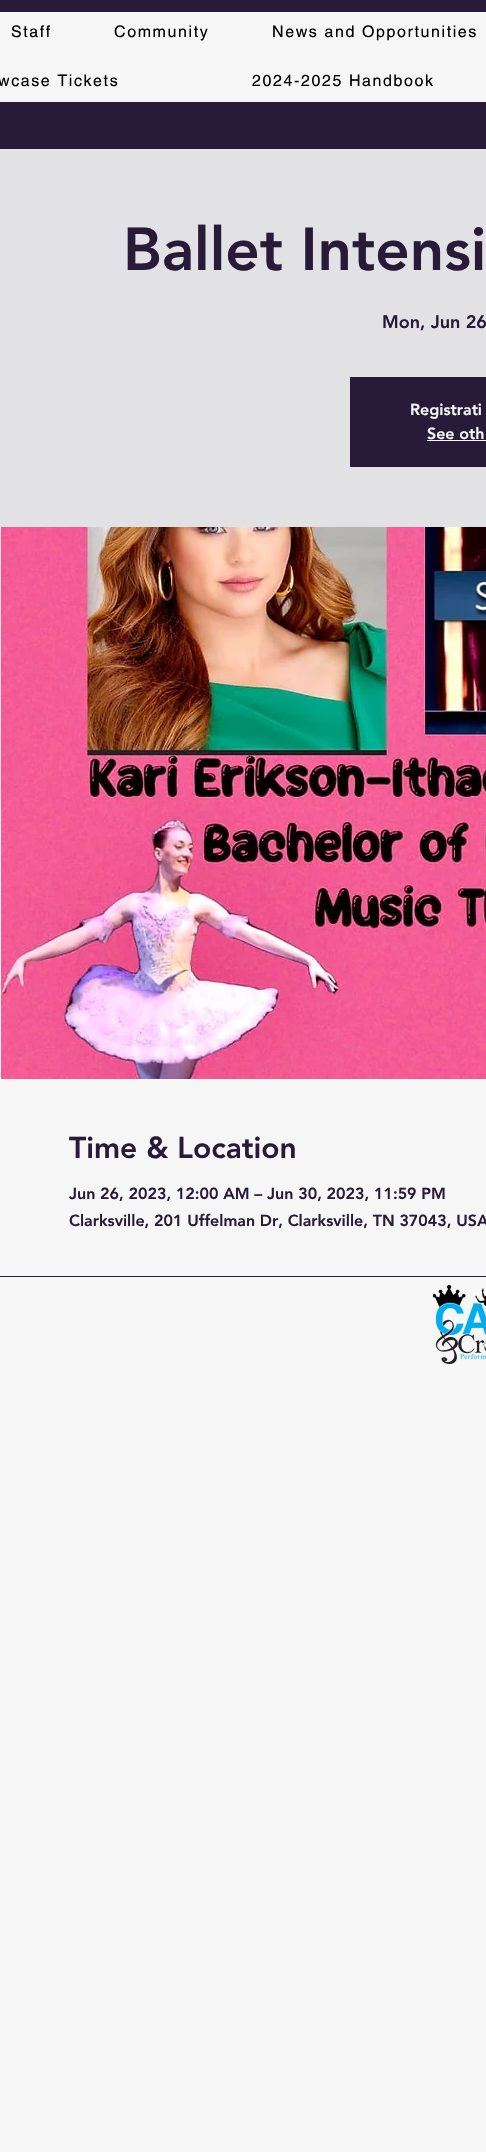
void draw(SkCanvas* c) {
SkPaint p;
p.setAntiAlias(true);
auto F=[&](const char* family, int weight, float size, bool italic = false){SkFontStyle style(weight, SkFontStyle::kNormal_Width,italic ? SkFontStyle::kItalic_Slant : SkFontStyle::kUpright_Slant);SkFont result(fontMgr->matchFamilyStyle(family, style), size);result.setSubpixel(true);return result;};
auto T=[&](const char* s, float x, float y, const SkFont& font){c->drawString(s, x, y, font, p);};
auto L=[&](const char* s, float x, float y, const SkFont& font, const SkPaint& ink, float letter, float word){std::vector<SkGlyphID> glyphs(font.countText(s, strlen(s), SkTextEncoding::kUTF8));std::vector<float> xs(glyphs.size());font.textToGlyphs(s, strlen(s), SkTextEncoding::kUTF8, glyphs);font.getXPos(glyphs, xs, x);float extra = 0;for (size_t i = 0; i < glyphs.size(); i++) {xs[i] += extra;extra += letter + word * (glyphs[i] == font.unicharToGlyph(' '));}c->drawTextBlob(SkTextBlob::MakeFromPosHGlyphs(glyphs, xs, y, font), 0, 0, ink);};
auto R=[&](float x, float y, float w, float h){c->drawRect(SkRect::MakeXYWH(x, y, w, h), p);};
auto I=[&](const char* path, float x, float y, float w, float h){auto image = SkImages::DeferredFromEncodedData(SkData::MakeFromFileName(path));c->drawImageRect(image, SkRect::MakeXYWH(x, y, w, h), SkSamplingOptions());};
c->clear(0xfff6f6f6);
p.setColor(0xff281a39);
R(0,0,486,149);
p.setColor(0xfff6f6f6);
R(0,12,486,90);
auto f1 = F("helvetica",400,16);
p.setColor(0xff000000);
L("Staff",11,37,f1,p,1.6,0);
L("Community",114,37,f1,p,1.6,0);
L("News and Opportunities",272,37,f1,p,1.6,0);
L("wcase Tickets",-2,86,f1,p,1.6,0);
L("2024-2025 Handbook",252,86,f1,p,1.6,0);
p.setColor(0xffe2e1e4);
R(0,149,486,654);
auto f2 = F("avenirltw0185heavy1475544",900,60);
p.setColor(0xff281a39);
T("Ballet Intensi",123,270,f2);
auto f3 = F("avenirltw0185heavy1475544",900,18);
T("Mon, Jun 26",382,328,f3);
R(350,377,136,90);
auto f4 = F("avenirltw0185heavy1475544",900,16);
p.setColor(0xfff6f6f6);
T("Registrati",410,415,f4);
T("See oth",427,439,f4);
R(427,440,59,1);
I("1.png",1,527,485,552);
auto f5 = F("avenirltw0185heavy1475544",900,30);
p.setColor(0xff281a39);
T("Time & Location",69,1158,f5);
T("Jun 26, 2023, 12:00 AM – Jun 30, 2023, 11:59 PM",69,1199,f4);
T("Clarksville, 201 Uffelman Dr, Clarksville, TN 37043, USA",69,1226,f4);
R(0,1276,486,1);
I("2.png",433,1284,53,80);
}
